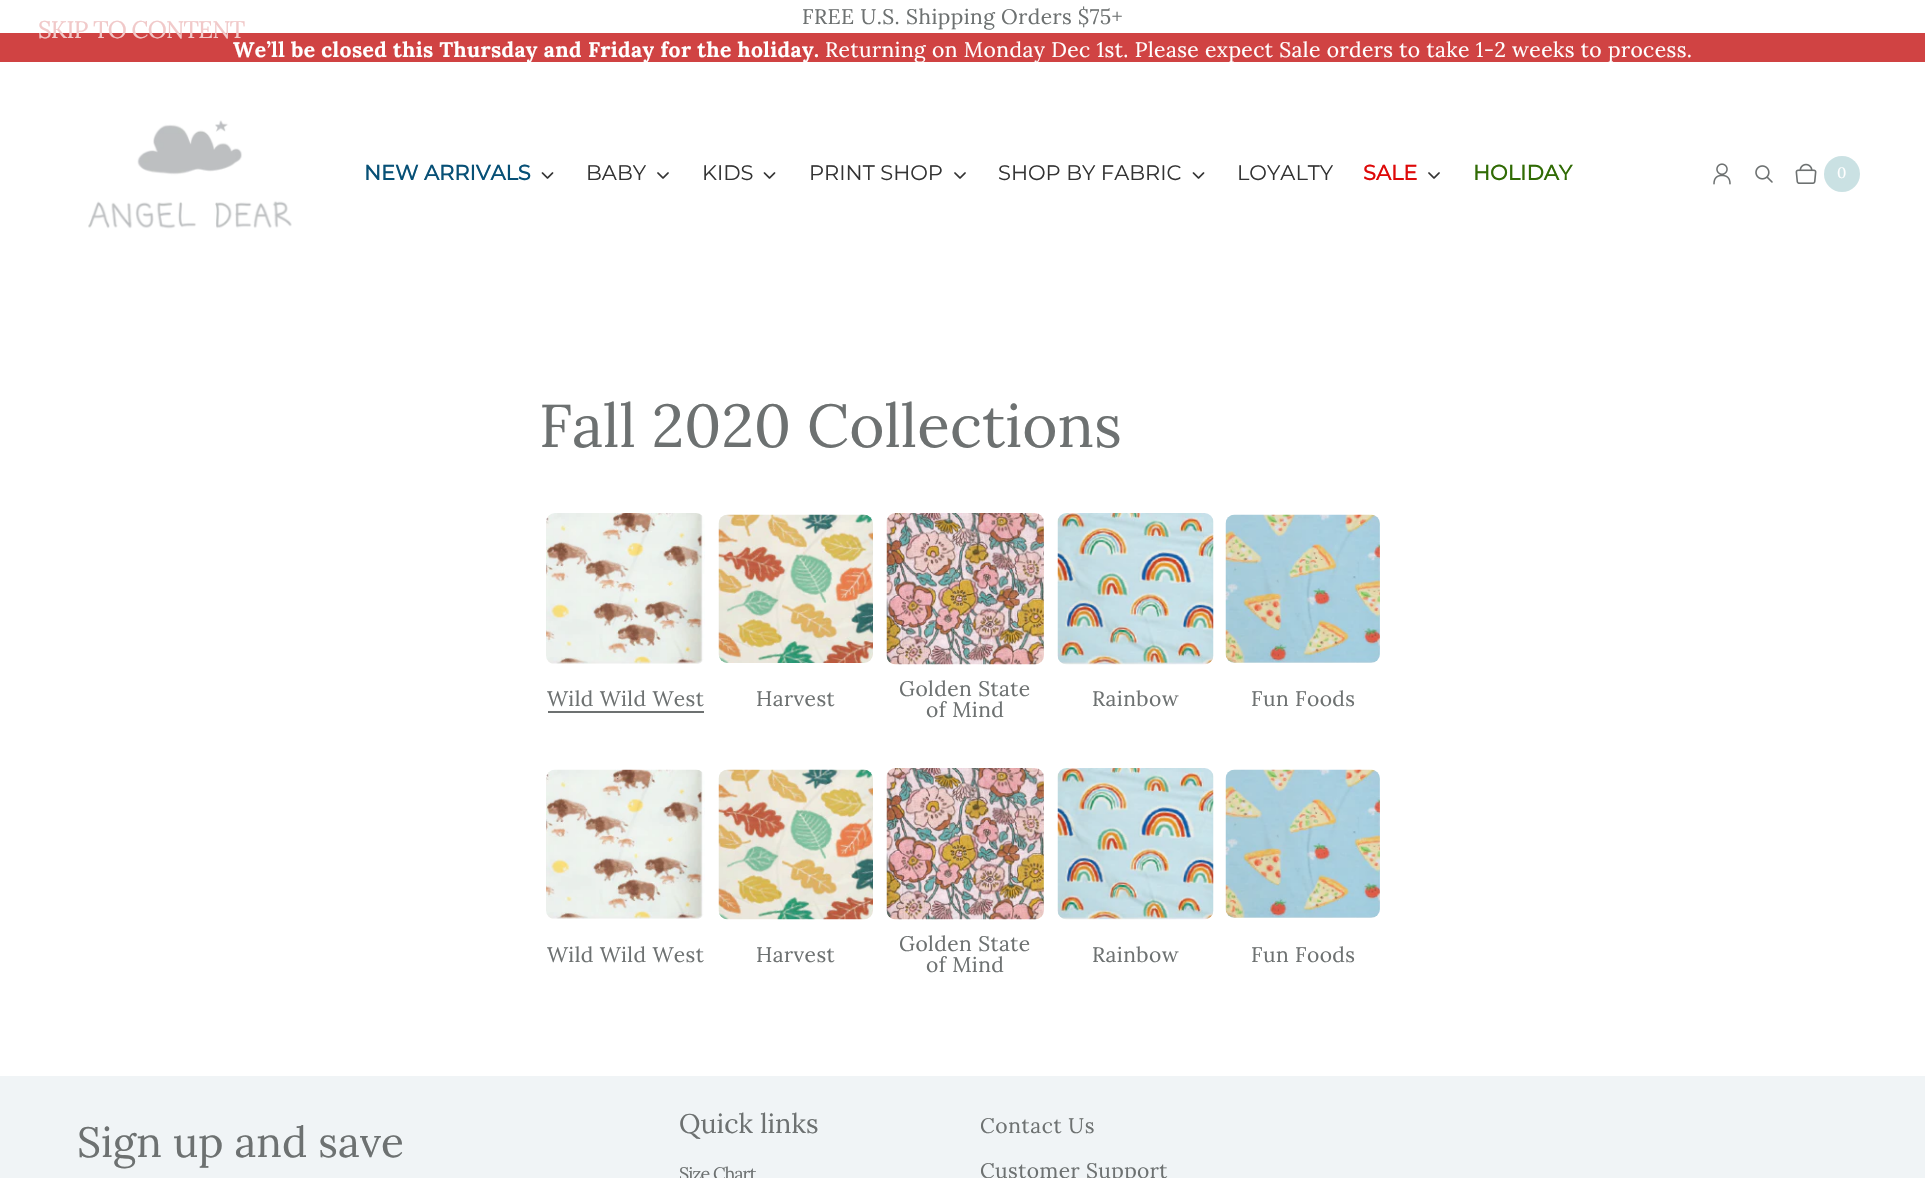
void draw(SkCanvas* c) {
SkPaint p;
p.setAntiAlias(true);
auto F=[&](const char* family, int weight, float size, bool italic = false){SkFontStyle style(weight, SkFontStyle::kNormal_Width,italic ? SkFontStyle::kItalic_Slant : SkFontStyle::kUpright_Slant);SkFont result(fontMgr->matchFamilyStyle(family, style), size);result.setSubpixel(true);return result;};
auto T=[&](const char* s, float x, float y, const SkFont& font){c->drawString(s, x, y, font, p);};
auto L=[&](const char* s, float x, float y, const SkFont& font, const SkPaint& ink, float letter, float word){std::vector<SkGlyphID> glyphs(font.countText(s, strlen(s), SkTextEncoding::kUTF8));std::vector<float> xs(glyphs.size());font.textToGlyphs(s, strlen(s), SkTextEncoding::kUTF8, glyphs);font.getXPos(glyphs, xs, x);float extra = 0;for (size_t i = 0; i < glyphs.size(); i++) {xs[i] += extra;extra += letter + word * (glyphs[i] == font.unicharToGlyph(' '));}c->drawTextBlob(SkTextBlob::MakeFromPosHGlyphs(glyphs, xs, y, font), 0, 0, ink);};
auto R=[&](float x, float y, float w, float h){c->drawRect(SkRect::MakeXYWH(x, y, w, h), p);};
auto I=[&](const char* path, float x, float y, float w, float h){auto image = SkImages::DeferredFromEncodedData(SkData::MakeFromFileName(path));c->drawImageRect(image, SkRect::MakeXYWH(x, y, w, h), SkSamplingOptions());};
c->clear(0xffffffff);
p.setColor(0xffd04343);
R(0,33,1925,29);
auto f1 = F("Lora",400,24);
p.setColor(0xfff1c9c9);
L("SKIP TO CONTENT",38,38,f1,p,-.75,0);
auto f2 = F("Lora",400,21);
p.setColor(0xff6d7171);
L("FREE U.S. Shipping Orders $75+",802,24,f2,p,.42,0);
auto f3 = F("Lora",700,21);
p.setColor(0xffffffff);
L("We’ll be closed this Thursday and Friday for the holiday.",233,57,f3,p,.42,0);
L("Returning on Monday Dec 1st. Please expect Sale orders to take 1-2 weeks to process.",825,57,f2,p,.42,0);
I("1.png",88,120,204,109);
auto f4 = F("Montserrat",700,21);
p.setColor(0xff075076);
T("NEW ARRIVALS",364,180,f4);
I("2.png",541,172,13,7);
auto f5 = F("Montserrat",100,21);
p.setColor(0xff333333);
T("BABY",586,180,f5);
I("3.png",657,172,12,7);
T("KIDS",702,180,f5);
I("2.png",763,172,13,7);
T("PRINT SHOP",809,180,f5);
I("3.png",954,172,12,7);
T("SHOP BY FABRIC",998,180,f5);
I("2.png",1192,172,13,7);
T("LOYALTY",1237,180,f5);
p.setColor(0xffde0909);
T("SALE",1363,180,f4);
I("3.png",1428,172,12,7);
p.setColor(0xff306b04);
T("HOLIDAY",1473,180,f4);
I("4.png",1713,163,18,22);
I("5.png",1755,165,18,18);
I("6.png",1795,163,22,21);
p.setColor(0xffcae1e3);
c->drawCircle(1842,174,18,p);
auto f6 = F("Lora",400,15);
p.setColor(0xffffffff);
L("0",1837,178,f6,p,-1,0);
auto f7 = F("Lora",400,60.25);
p.setColor(0xff6d7171);
T("Fall 2020 Collections",539,447,f7);
I("7.png",546,513,159,151);
I("8.png",718,514,155,149);
I("9.png",886,513,158,152);
I("10.png",1057,513,157,152);
I("11.png",1225,514,155,149);
L("Wild Wild West",547,706,f2,p,.42,0);
R(548,711,156,2);
L("Harvest",756,706,f2,p,.42,0);
L("Golden State",899,696,f2,p,.42,0);
L("of Mind",926,717,f2,p,.42,0);
L("Rainbow",1092,706,f2,p,.42,0);
L("Fun Foods",1251,706,f2,p,.42,0);
I("12.png",546,769,159,150);
I("13.png",718,769,155,151);
I("9.png",886,768,158,152);
I("10.png",1057,768,157,152);
I("11.png",1225,769,155,149);
L("Wild Wild West",547,962,f2,p,.42,0);
L("Harvest",756,962,f2,p,.42,0);
L("Golden State",899,951,f2,p,.42,0);
L("of Mind",926,972,f2,p,.42,0);
L("Rainbow",1092,962,f2,p,.42,0);
L("Fun Foods",1251,962,f2,p,.42,0);
p.setColor(0xfff0f4f6);
R(0,1076,1925,102);
auto f8 = F("Lora",400,42.25);
p.setColor(0xff6d7171);
T("Sign up and save",77,1157,f8);
auto f9 = F("Lora",400,27);
T("Quick links",679,1133,f9);
auto f10 = F("Lora",400,18);
L("Size Chart",679,1180,f10,p,-1,0);
L("Contact Us",980,1133,f2,p,.6,0);
L("Customer Support",980,1178,f2,p,.42,0);
}
